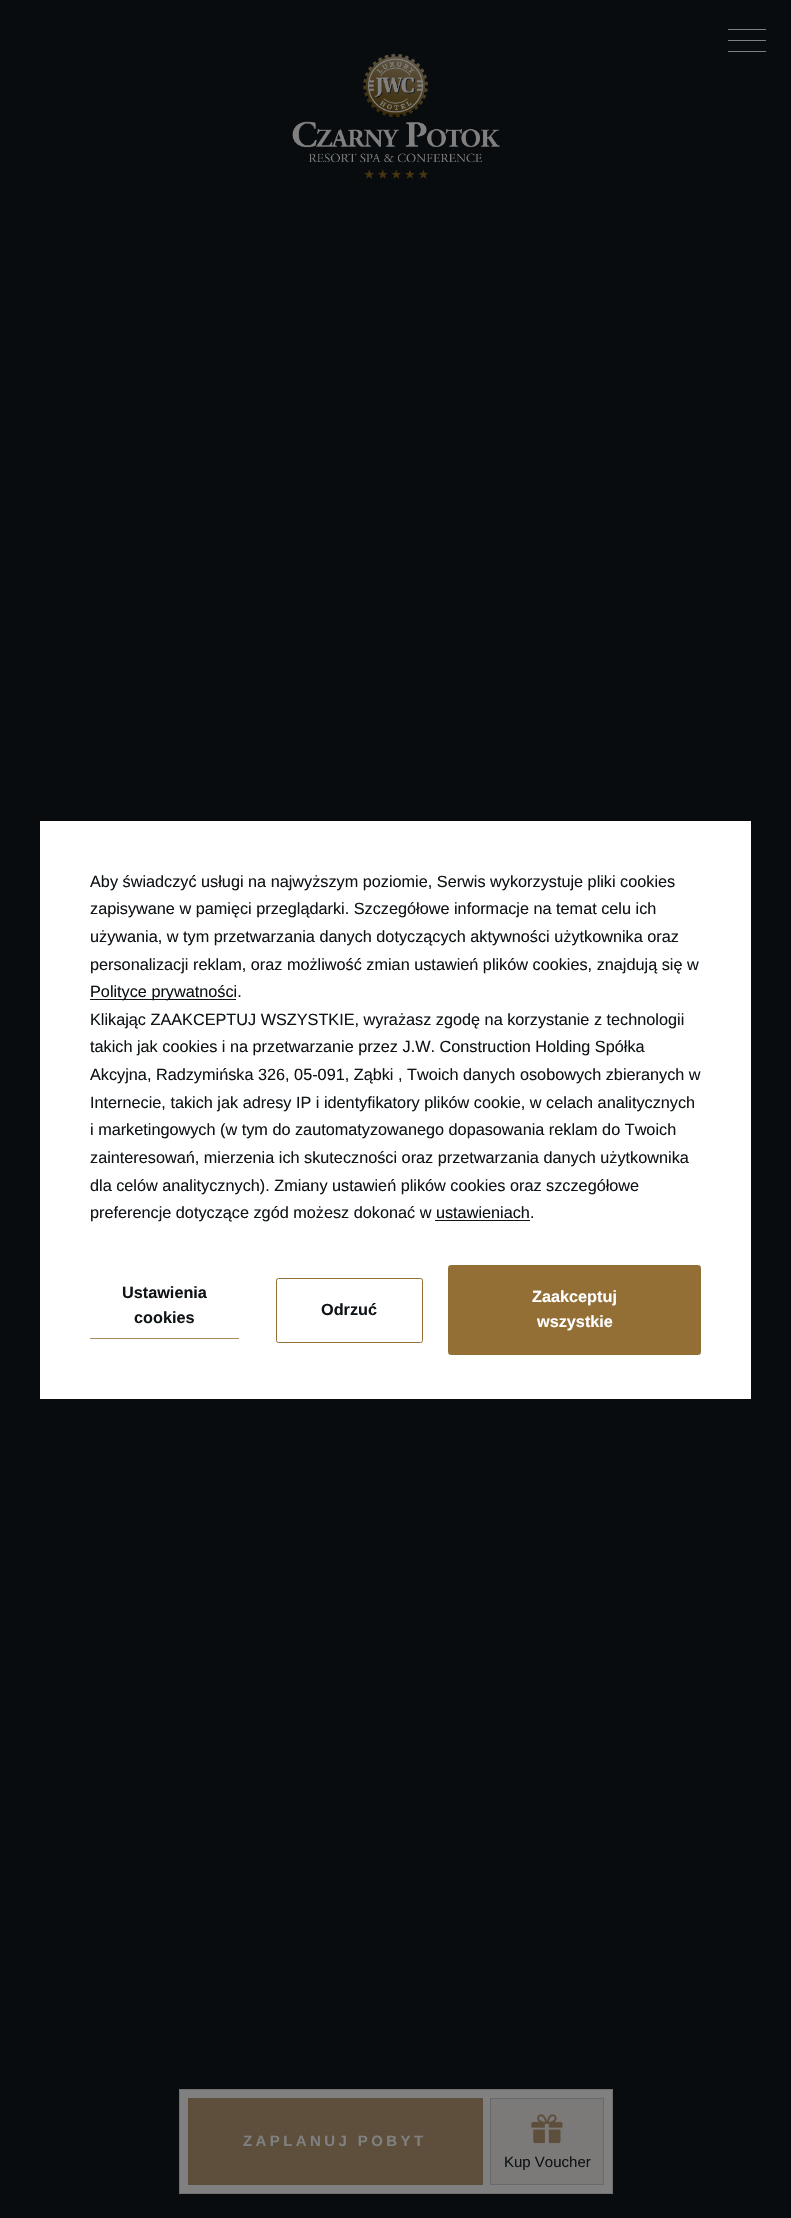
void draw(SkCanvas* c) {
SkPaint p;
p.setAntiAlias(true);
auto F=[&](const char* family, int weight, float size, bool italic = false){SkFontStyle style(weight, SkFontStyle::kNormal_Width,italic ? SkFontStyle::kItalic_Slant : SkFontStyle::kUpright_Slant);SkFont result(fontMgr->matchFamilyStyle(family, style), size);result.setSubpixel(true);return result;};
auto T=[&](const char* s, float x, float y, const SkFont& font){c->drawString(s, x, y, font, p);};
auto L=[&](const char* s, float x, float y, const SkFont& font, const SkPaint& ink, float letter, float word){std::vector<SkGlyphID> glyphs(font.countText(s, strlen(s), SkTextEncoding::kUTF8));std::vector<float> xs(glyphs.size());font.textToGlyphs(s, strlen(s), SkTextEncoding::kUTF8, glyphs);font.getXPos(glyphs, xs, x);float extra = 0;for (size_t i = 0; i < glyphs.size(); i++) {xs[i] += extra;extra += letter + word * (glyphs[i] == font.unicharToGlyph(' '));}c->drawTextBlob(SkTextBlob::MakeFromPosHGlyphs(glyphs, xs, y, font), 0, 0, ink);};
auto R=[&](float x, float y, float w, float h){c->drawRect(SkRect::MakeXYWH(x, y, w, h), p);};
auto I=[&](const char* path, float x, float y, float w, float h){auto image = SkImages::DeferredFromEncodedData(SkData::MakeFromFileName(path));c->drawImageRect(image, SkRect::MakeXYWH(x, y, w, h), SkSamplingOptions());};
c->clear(0xff090c0e);
p.setColor(0xff808080);
R(728,29,38,1);
R(728,40,38,1);
R(728,51,38,1);
I("1.png",292,53,208,126);
p.setColor(0xffffffff);
R(40,821,711,578);
auto f1 = F("Liberation Sans",400,16.25);
p.setColor(0xff0f1417);
T("Aby świadczyć usługi na najwyższym poziomie, Serwis wykorzystuje pliki cookies",90,887,f1);
T("zapisywane w pamięci przeglądarki. Szczegółowe informacje na temat celu ich",90,914,f1);
T("używania, w tym przetwarzania danych dotyczących aktywności użytkownika oraz",90,942,f1);
T("personalizacji reklam, oraz możliwość zmian ustawień plików cookies, znajdują się w",90,970,f1);
p.setColor(0xff141416);
R(90,999,146,1);
p.setColor(0xff0f1417);
T("Polityce prywatności.",90,997,f1);
T("Klikając ZAAKCEPTUJ WSZYSTKIE, wyrażasz zgodę na korzystanie z technologii",90,1025,f1);
T("takich jak cookies i na przetwarzanie przez J.W. Construction Holding Spółka",90,1052,f1);
T("Akcyjna, Radzymińska 326, 05-091, Ząbki , Twoich danych osobowych zbieranych w",90,1080,f1);
T("Internecie, takich jak adresy IP i identyfikatory plików cookie, w celach analitycznych",90,1108,f1);
T("i marketingowych (w tym do zautomatyzowanego dopasowania reklam do Twoich",90,1135,f1);
T("zainteresowań, mierzenia ich skuteczności oraz przetwarzania danych użytkownika",90,1163,f1);
T("dla celów analitycznych). Zmiany ustawień plików cookies oraz szczegółowe",90,1191,f1);
T("preferencje dotyczące zgód możesz dokonać w ustawieniach.",90,1218,f1);
p.setColor(0xff141416);
R(435,1220,95,1);
auto f2 = F("Liberation Sans",700,16.25);
p.setColor(0xff0f1417);
T("Ustawienia",122,1298,f2);
T("cookies",134,1323,f2);
p.setColor(0xffa98b5d);
R(90,1338,149,1);
p.setStroke(true);
p.setStrokeWidth(1);
p.setColor(0xff936e35);
c->drawRoundRect(SkRect::MakeXYWH(276.5,1278.5,146,64),2,2,p);
p.setStroke(false);
p.setColor(0xff0f1417);
T("Odrzuć",321,1315,f2);
p.setStroke(true);
p.setColor(0xff936e35);
c->drawRoundRect(SkRect::MakeXYWH(448.5,1265.5,252,89),2,2,p);
p.setStroke(false);
R(449,1266,251,88);
p.setColor(0xffffffff);
T("Zaakceptuj",532,1302,f2);
T("wszystkie",537,1327,f2);
p.setColor(0xff808080);
c->drawRect(SkRect::MakeXYWH(179.5,2089.5,433,104),p);
p.setStroke(true);
p.setColor(0xff707070);
c->drawRect(SkRect::MakeXYWH(179.5,2089.5,433,104),p);
p.setStroke(false);
p.setColor(0xff5e4e3c);
R(188,2098,295,87);
auto f3 = F("Liberation Sans",700,15);
p.setColor(0xff808080);
L("ZAPLANUJ POBYT",243,2146,f3,p,3.4,0);
p.setColor(0xff7c7a79);
c->drawRect(SkRect::MakeXYWH(490.5,2098.5,113,86),p);
p.setStroke(true);
p.setColor(0xff68696b);
c->drawRect(SkRect::MakeXYWH(490.5,2098.5,113,86),p);
I("2.png",531,2114,32,30);
auto f4 = F("Liberation Sans",400,15);
p.setStroke(false);
p.setColor(0xff0f1417);
T("Kup Voucher",504,2167,f4);
}
